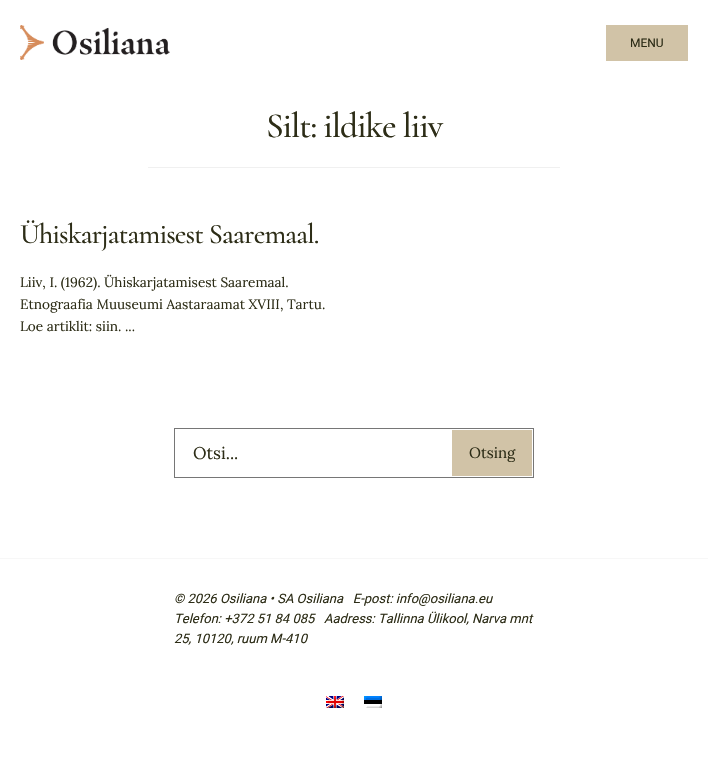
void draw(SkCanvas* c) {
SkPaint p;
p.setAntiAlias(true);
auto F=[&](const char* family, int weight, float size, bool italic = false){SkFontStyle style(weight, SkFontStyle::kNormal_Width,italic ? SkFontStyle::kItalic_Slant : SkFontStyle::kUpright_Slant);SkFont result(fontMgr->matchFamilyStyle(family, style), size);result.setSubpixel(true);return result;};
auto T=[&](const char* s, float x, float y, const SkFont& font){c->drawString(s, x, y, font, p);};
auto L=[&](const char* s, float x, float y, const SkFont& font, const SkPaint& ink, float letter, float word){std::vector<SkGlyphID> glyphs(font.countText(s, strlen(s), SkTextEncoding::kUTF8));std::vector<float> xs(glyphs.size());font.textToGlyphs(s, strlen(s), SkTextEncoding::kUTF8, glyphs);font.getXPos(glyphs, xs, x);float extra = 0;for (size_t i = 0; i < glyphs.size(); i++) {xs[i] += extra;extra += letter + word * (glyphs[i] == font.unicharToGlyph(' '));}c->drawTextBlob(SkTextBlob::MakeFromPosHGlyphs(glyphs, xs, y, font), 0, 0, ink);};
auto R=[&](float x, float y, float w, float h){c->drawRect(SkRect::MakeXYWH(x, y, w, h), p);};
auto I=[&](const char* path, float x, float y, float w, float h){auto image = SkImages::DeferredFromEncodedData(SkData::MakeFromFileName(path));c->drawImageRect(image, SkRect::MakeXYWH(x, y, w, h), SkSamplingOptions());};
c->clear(0xffffffff);
I("1.png",20,25,150,35);
p.setColor(0xffd1c3a7);
R(606,25,82,36);
auto f1 = F("Roboto",400,12);
p.setColor(0xff2d2d17);
T("MENU",630,47,f1);
p.setColor(0xfff0f0f0);
R(148,167,412,1);
auto f2 = F("Cormorant",300,35.5);
p.setColor(0xff2d2d17);
L("Silt: ildike liiv",266,137,f2,p,-1.1,0);
auto f3 = F("Cormorant",300,28.25);
L("Ühiskarjatamisest Saaremaal.",20,243,f3,p,-.85,0);
auto f4 = F("Lora",400,13.6);
T("Liiv, I. (1962). Ühiskarjatamisest Saaremaal.",20,287,f4);
T("Etnograafia Muuseumi Aastaraamat XVIII, Tartu.",20,309,f4);
T("Loe artiklit: siin. ...",20,331,f4);
p.setStroke(true);
p.setStrokeWidth(1);
p.setColor(0xff767676);
c->drawRect(SkRect::MakeXYWH(174.5,428.5,359,49),p);
auto f5 = F("Lora",400,17);
p.setStroke(false);
p.setColor(0xff2d2d17);
T("Otsi...",193,459,f5);
p.setColor(0xffd1c3a7);
R(452,430,80,46);
auto f6 = F("Lora",400,15);
p.setColor(0xff2d2d17);
T("Otsing",469,458,f6);
p.setColor(0xfff7f7f7);
R(0,558,708,1);
auto f7 = F("Roboto",400,13,true);
p.setColor(0xff2d2d17);
T("© 2026 Osiliana • SA Osiliana   E-post: info@osiliana.eu",174,603,f7);
T("Telefon: +372 51 84 085   Aadress: Tallinna Ülikool, Narva mnt",174,623,f7);
T("25, 10120, ruum M-410",174,643,f7);
I("2.png",326,696,18,12);
I("3.png",364,696,18,12);
}
